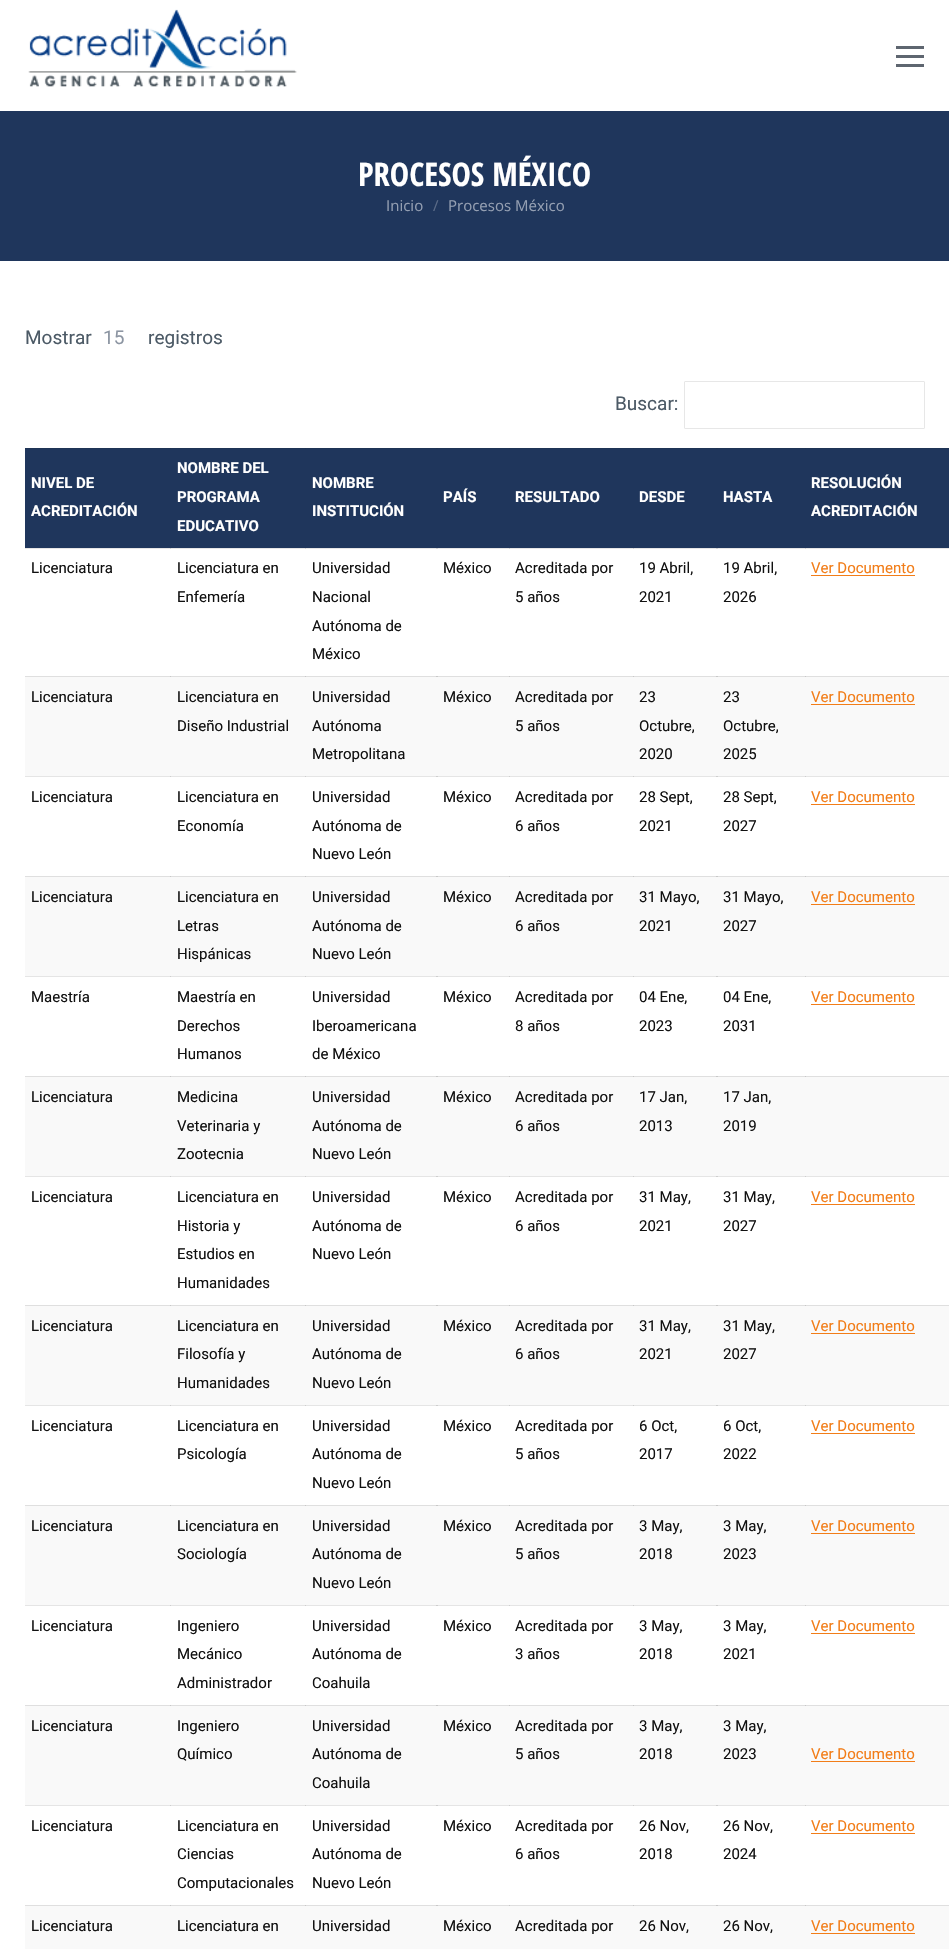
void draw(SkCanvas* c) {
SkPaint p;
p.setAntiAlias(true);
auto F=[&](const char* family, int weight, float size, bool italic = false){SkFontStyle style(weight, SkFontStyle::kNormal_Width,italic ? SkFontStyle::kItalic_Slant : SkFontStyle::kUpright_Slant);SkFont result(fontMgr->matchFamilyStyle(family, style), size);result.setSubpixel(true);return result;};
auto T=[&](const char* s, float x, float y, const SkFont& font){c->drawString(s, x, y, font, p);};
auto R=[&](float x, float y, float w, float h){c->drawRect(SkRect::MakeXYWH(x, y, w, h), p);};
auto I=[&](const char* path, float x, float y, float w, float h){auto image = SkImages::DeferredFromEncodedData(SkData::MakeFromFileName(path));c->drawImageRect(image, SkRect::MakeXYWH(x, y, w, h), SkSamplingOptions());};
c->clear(0xffffffff);
p.setColor(0xffe5e5e5);
R(25,548,924,1);
p.setColor(0xffcecece);
R(170,548,1,1);
R(305,548,1,1);
R(436,548,2,1);
R(509,548,1,1);
R(633,548,1,1);
R(716,548,2,1);
p.setColor(0xffe5e5e5);
R(25,776,924,1);
p.setColor(0xffcecece);
R(170,776,1,1);
R(305,776,1,1);
R(436,776,2,1);
R(509,776,1,1);
R(633,776,1,1);
R(716,776,2,1);
p.setColor(0xffe5e5e5);
R(25,976,924,1);
p.setColor(0xffcecece);
R(170,976,1,1);
R(305,976,1,1);
R(436,976,2,1);
R(509,976,1,1);
R(633,976,1,1);
R(716,976,2,1);
p.setColor(0xffe5e5e5);
R(25,1176,924,1);
p.setColor(0xffcecece);
R(170,1176,1,1);
R(305,1176,1,1);
R(436,1176,2,1);
R(509,1176,1,1);
R(633,1176,1,1);
R(716,1176,2,1);
p.setColor(0xffe5e5e5);
R(25,1405,924,1);
p.setColor(0xffcecece);
R(170,1405,1,1);
R(305,1405,1,1);
R(436,1405,2,1);
R(509,1405,1,1);
R(633,1405,1,1);
R(716,1405,2,1);
p.setColor(0xffe5e5e5);
R(25,1605,924,1);
p.setColor(0xffcecece);
R(170,1605,1,1);
R(305,1605,1,1);
R(436,1605,2,1);
R(509,1605,1,1);
R(633,1605,1,1);
R(716,1605,2,1);
p.setColor(0xffe5e5e5);
R(25,1805,924,1);
p.setColor(0xffcecece);
R(170,1805,1,1);
R(305,1805,1,1);
R(436,1805,2,1);
R(509,1805,1,1);
R(633,1805,1,1);
R(716,1805,2,1);
I("1.png",28,9,269,78);
p.setColor(0xff5e6670);
R(896,55,28,3);
R(896,46,28,3);
R(896,64,28,3);
p.setColor(0xff1f365c);
R(0,111,949,150);
auto f1 = F("Open Sans Condensed",700,32.5);
p.setColor(0xffffffff);
T("PROCESOS MÉXICO",358,186,f1);
auto f2 = F("Open Sans",400,15);
p.setColor(0xff949fb2);
T("Inicio",386,211,f2);
p.setColor(0xff5a6b87);
T("/",433,211,f2);
p.setColor(0xff949fb2);
T("Procesos México",448,211,f2);
auto f3 = F("Roboto",400,19);
p.setColor(0xff4c5a66);
T("Mostrar",25,344,f3);
p.setColor(0xff8c95a2);
T("15",103,344,f3);
p.setColor(0xff4c5a66);
T("registros",148,344,f3);
T("Buscar:",615,410,f3);
p.setStroke(true);
p.setStrokeWidth(1);
p.setColor(0xffe7e7e7);
c->drawRoundRect(SkRect::MakeXYWH(684.5,381.5,240,47),.5,.5,p);
p.setStroke(false);
p.setColor(0xff1f365c);
R(25,449,924,99);
p.setColor(0xff1f3455);
R(25,448,924,1);
auto f4 = F("Roboto",700,15);
p.setColor(0xffffffff);
T("NIVEL DE",31,488,f4);
T("ACREDITACIÓN",31,516,f4);
p.setColor(0xff1f324f);
R(170,448,1,1);
R(305,448,1,1);
p.setColor(0xffffffff);
T("NOMBRE DEL",177,473,f4);
T("PROGRAMA",177,502,f4);
T("EDUCATIVO",177,531,f4);
p.setColor(0xff1f324f);
R(436,448,2,1);
p.setColor(0xffffffff);
T("NOMBRE",312,488,f4);
T("INSTITUCIÓN",312,516,f4);
T("PAÍS",443,502,f4);
p.setColor(0xff1f324f);
R(509,448,1,1);
p.setColor(0xffffffff);
T("RESULTADO",515,502,f4);
p.setColor(0xff1f324f);
R(633,448,1,1);
R(716,448,2,1);
p.setColor(0xffffffff);
T("DESDE",639,502,f4);
T("HASTA",723,502,f4);
p.setColor(0xff1f324f);
R(805,448,1,1);
p.setColor(0xffffffff);
T("RESOLUCIÓN",811,488,f4);
T("ACREDITACIÓN",811,516,f4);
auto f5 = F("Roboto",400,15);
p.setColor(0xff111111);
T("Licenciatura",31,573,f5);
T("Licenciatura en",177,573,f5);
T("Enfemería",177,602,f5);
T("Universidad",312,573,f5);
T("Nacional",312,602,f5);
T("Autónoma de",312,631,f5);
T("México",312,659,f5);
T("México",443,573,f5);
T("Acreditada por",515,573,f5);
T("5 años",515,602,f5);
T("19 Abril,",639,573,f5);
T("2021",639,602,f5);
T("19 Abril,",723,573,f5);
T("2026",723,602,f5);
p.setColor(0xffcecece);
R(805,548,1,1);
p.setColor(0xfff27d18);
T("Ver Documento",811,573,f5);
R(811,575,104,1);
p.setColor(0xfff9f9f9);
R(25,677,924,99);
p.setColor(0xffdfdfdf);
R(25,676,924,1);
p.setColor(0xff111111);
T("Licenciatura",31,702,f5);
p.setColor(0xffc8c8c8);
R(170,676,1,1);
R(305,676,1,1);
p.setColor(0xff111111);
T("Licenciatura en",177,702,f5);
T("Diseño Industrial",177,731,f5);
p.setColor(0xffc8c8c8);
R(436,676,2,1);
p.setColor(0xff111111);
T("Universidad",312,702,f5);
T("Autónoma",312,731,f5);
T("Metropolitana",312,759,f5);
T("México",443,702,f5);
p.setColor(0xffc8c8c8);
R(509,676,1,1);
p.setColor(0xff111111);
T("Acreditada por",515,702,f5);
T("5 años",515,731,f5);
p.setColor(0xffc8c8c8);
R(633,676,1,1);
R(716,676,2,1);
p.setColor(0xff111111);
T("23",639,702,f5);
T("Octubre,",639,731,f5);
T("2020",639,759,f5);
T("23",723,702,f5);
T("Octubre,",723,731,f5);
T("2025",723,759,f5);
p.setColor(0xffc8c8c8);
R(805,676,1,1);
p.setColor(0xfff27d18);
T("Ver Documento",811,702,f5);
R(811,704,104,1);
p.setColor(0xff111111);
T("Licenciatura",31,802,f5);
T("Licenciatura en",177,802,f5);
T("Economía",177,831,f5);
T("Universidad",312,802,f5);
T("Autónoma de",312,831,f5);
T("Nuevo León",312,859,f5);
T("México",443,802,f5);
T("Acreditada por",515,802,f5);
T("6 años",515,831,f5);
T("28 Sept,",639,802,f5);
T("2021",639,831,f5);
T("28 Sept,",723,802,f5);
T("2027",723,831,f5);
p.setColor(0xffcecece);
R(805,776,1,1);
p.setColor(0xfff27d18);
T("Ver Documento",811,802,f5);
R(811,804,104,1);
p.setColor(0xfff9f9f9);
R(25,877,924,99);
p.setColor(0xffdfdfdf);
R(25,876,924,1);
p.setColor(0xff111111);
T("Licenciatura",31,902,f5);
p.setColor(0xffc8c8c8);
R(170,876,1,1);
R(305,876,1,1);
p.setColor(0xff111111);
T("Licenciatura en",177,902,f5);
T("Letras",177,931,f5);
T("Hispánicas",177,959,f5);
p.setColor(0xffc8c8c8);
R(436,876,2,1);
p.setColor(0xff111111);
T("Universidad",312,902,f5);
T("Autónoma de",312,931,f5);
T("Nuevo León",312,959,f5);
T("México",443,902,f5);
p.setColor(0xffc8c8c8);
R(509,876,1,1);
p.setColor(0xff111111);
T("Acreditada por",515,902,f5);
T("6 años",515,931,f5);
p.setColor(0xffc8c8c8);
R(633,876,1,1);
R(716,876,2,1);
p.setColor(0xff111111);
T("31 Mayo,",639,902,f5);
T("2021",639,931,f5);
T("31 Mayo,",723,902,f5);
T("2027",723,931,f5);
p.setColor(0xffc8c8c8);
R(805,876,1,1);
p.setColor(0xfff27d18);
T("Ver Documento",811,902,f5);
R(811,904,104,1);
p.setColor(0xff111111);
T("Maestría",31,1002,f5);
T("Maestría en",177,1002,f5);
T("Derechos",177,1031,f5);
T("Humanos",177,1059,f5);
T("Universidad",312,1002,f5);
T("Iberoamericana",312,1031,f5);
T("de México",312,1059,f5);
T("México",443,1002,f5);
T("Acreditada por",515,1002,f5);
T("8 años",515,1031,f5);
T("04 Ene,",639,1002,f5);
T("2023",639,1031,f5);
T("04 Ene,",723,1002,f5);
T("2031",723,1031,f5);
p.setColor(0xffcecece);
R(805,976,1,1);
p.setColor(0xfff27d18);
T("Ver Documento",811,1002,f5);
R(811,1004,104,1);
p.setColor(0xffdfdfdf);
R(25,1076,924,1);
p.setColor(0xffc8c8c8);
R(805,1076,1,1);
p.setColor(0xfff9f9f9);
R(25,1077,924,99);
p.setColor(0xff111111);
T("Licenciatura",31,1102,f5);
p.setColor(0xffc8c8c8);
R(170,1076,1,1);
R(305,1076,1,1);
p.setColor(0xff111111);
T("Medicina",177,1102,f5);
T("Veterinaria y",177,1131,f5);
T("Zootecnia",177,1159,f5);
p.setColor(0xffc8c8c8);
R(436,1076,2,1);
p.setColor(0xff111111);
T("Universidad",312,1102,f5);
T("Autónoma de",312,1131,f5);
T("Nuevo León",312,1159,f5);
T("México",443,1102,f5);
p.setColor(0xffc8c8c8);
R(509,1076,1,1);
p.setColor(0xff111111);
T("Acreditada por",515,1102,f5);
T("6 años",515,1131,f5);
p.setColor(0xffc8c8c8);
R(633,1076,1,1);
R(716,1076,2,1);
p.setColor(0xff111111);
T("17 Jan,",639,1102,f5);
T("2013",639,1131,f5);
T("17 Jan,",723,1102,f5);
T("2019",723,1131,f5);
T("Licenciatura",31,1202,f5);
T("Licenciatura en",177,1202,f5);
T("Historia y",177,1231,f5);
T("Estudios en",177,1259,f5);
T("Humanidades",177,1288,f5);
T("Universidad",312,1202,f5);
T("Autónoma de",312,1231,f5);
T("Nuevo León",312,1259,f5);
T("México",443,1202,f5);
T("Acreditada por",515,1202,f5);
T("6 años",515,1231,f5);
T("31 May,",639,1202,f5);
T("2021",639,1231,f5);
T("31 May,",723,1202,f5);
T("2027",723,1231,f5);
p.setColor(0xffcecece);
R(805,1176,1,1);
p.setColor(0xfff27d18);
T("Ver Documento",811,1202,f5);
R(811,1204,104,1);
p.setColor(0xfff9f9f9);
R(25,1306,924,99);
p.setColor(0xffdfdfdf);
R(25,1305,924,1);
p.setColor(0xff111111);
T("Licenciatura",31,1331,f5);
p.setColor(0xffc8c8c8);
R(170,1305,1,1);
R(305,1305,1,1);
p.setColor(0xff111111);
T("Licenciatura en",177,1331,f5);
T("Filosofía y",177,1359,f5);
T("Humanidades",177,1388,f5);
p.setColor(0xffc8c8c8);
R(436,1305,2,1);
p.setColor(0xff111111);
T("Universidad",312,1331,f5);
T("Autónoma de",312,1359,f5);
T("Nuevo León",312,1388,f5);
T("México",443,1331,f5);
p.setColor(0xffc8c8c8);
R(509,1305,1,1);
p.setColor(0xff111111);
T("Acreditada por",515,1331,f5);
T("6 años",515,1359,f5);
p.setColor(0xffc8c8c8);
R(633,1305,1,1);
R(716,1305,2,1);
p.setColor(0xff111111);
T("31 May,",639,1331,f5);
T("2021",639,1359,f5);
T("31 May,",723,1331,f5);
T("2027",723,1359,f5);
p.setColor(0xffc8c8c8);
R(805,1305,1,1);
p.setColor(0xfff27d18);
T("Ver Documento",811,1331,f5);
R(811,1333,104,1);
p.setColor(0xff111111);
T("Licenciatura",31,1431,f5);
T("Licenciatura en",177,1431,f5);
T("Psicología",177,1459,f5);
T("Universidad",312,1431,f5);
T("Autónoma de",312,1459,f5);
T("Nuevo León",312,1488,f5);
T("México",443,1431,f5);
T("Acreditada por",515,1431,f5);
T("5 años",515,1459,f5);
T("6 Oct,",639,1431,f5);
T("2017",639,1459,f5);
T("6 Oct,",723,1431,f5);
T("2022",723,1459,f5);
p.setColor(0xffcecece);
R(805,1405,1,1);
p.setColor(0xfff27d18);
T("Ver Documento",811,1431,f5);
R(811,1433,104,1);
p.setColor(0xfff9f9f9);
R(25,1506,924,99);
p.setColor(0xffdfdfdf);
R(25,1505,924,1);
p.setColor(0xff111111);
T("Licenciatura",31,1531,f5);
p.setColor(0xffc8c8c8);
R(170,1505,1,1);
R(305,1505,1,1);
p.setColor(0xff111111);
T("Licenciatura en",177,1531,f5);
T("Sociología",177,1559,f5);
p.setColor(0xffc8c8c8);
R(436,1505,2,1);
p.setColor(0xff111111);
T("Universidad",312,1531,f5);
T("Autónoma de",312,1559,f5);
T("Nuevo León",312,1588,f5);
T("México",443,1531,f5);
p.setColor(0xffc8c8c8);
R(509,1505,1,1);
p.setColor(0xff111111);
T("Acreditada por",515,1531,f5);
T("5 años",515,1559,f5);
p.setColor(0xffc8c8c8);
R(633,1505,1,1);
R(716,1505,2,1);
p.setColor(0xff111111);
T("3 May,",639,1531,f5);
T("2018",639,1559,f5);
T("3 May,",723,1531,f5);
T("2023",723,1559,f5);
p.setColor(0xffc8c8c8);
R(805,1505,1,1);
p.setColor(0xfff27d18);
T("Ver Documento",811,1531,f5);
R(811,1533,104,1);
p.setColor(0xff111111);
T("Licenciatura",31,1631,f5);
T("Ingeniero",177,1631,f5);
T("Mecánico",177,1659,f5);
T("Administrador",177,1688,f5);
T("Universidad",312,1631,f5);
T("Autónoma de",312,1659,f5);
T("Coahuila",312,1688,f5);
T("México",443,1631,f5);
T("Acreditada por",515,1631,f5);
T("3 años",515,1659,f5);
T("3 May,",639,1631,f5);
T("2018",639,1659,f5);
T("3 May,",723,1631,f5);
T("2021",723,1659,f5);
p.setColor(0xffcecece);
R(805,1605,1,1);
p.setColor(0xfff27d18);
T("Ver Documento",811,1631,f5);
R(811,1633,104,1);
p.setColor(0xfff9f9f9);
R(25,1706,924,99);
p.setColor(0xffdfdfdf);
R(25,1705,924,1);
p.setColor(0xff111111);
T("Licenciatura",31,1731,f5);
p.setColor(0xffc8c8c8);
R(170,1705,1,1);
R(305,1705,1,1);
p.setColor(0xff111111);
T("Ingeniero",177,1731,f5);
T("Químico",177,1759,f5);
p.setColor(0xffc8c8c8);
R(436,1705,2,1);
p.setColor(0xff111111);
T("Universidad",312,1731,f5);
T("Autónoma de",312,1759,f5);
T("Coahuila",312,1788,f5);
T("México",443,1731,f5);
p.setColor(0xffc8c8c8);
R(509,1705,1,1);
p.setColor(0xff111111);
T("Acreditada por",515,1731,f5);
T("5 años",515,1759,f5);
p.setColor(0xffc8c8c8);
R(633,1705,1,1);
R(716,1705,2,1);
p.setColor(0xff111111);
T("3 May,",639,1731,f5);
T("2018",639,1759,f5);
T("3 May,",723,1731,f5);
T("2023",723,1759,f5);
p.setColor(0xffc8c8c8);
R(805,1705,1,1);
p.setColor(0xfff27d18);
T("Ver Documento",811,1759,f5);
R(811,1761,104,1);
p.setColor(0xff111111);
T("Licenciatura",31,1831,f5);
T("Licenciatura en",177,1831,f5);
T("Ciencias",177,1859,f5);
T("Computacionales",177,1888,f5);
T("Universidad",312,1831,f5);
T("Autónoma de",312,1859,f5);
T("Nuevo León",312,1888,f5);
T("México",443,1831,f5);
T("Acreditada por",515,1831,f5);
T("6 años",515,1859,f5);
T("26 Nov,",639,1831,f5);
T("2018",639,1859,f5);
T("26 Nov,",723,1831,f5);
T("2024",723,1859,f5);
p.setColor(0xffcecece);
R(805,1805,1,1);
p.setColor(0xfff27d18);
T("Ver Documento",811,1831,f5);
R(811,1833,104,1);
p.setColor(0xfff9f9f9);
R(25,1906,924,43);
p.setColor(0xffdfdfdf);
R(25,1905,924,1);
p.setColor(0xff111111);
T("Licenciatura",31,1931,f5);
p.setColor(0xffc8c8c8);
R(170,1905,1,1);
R(305,1905,1,1);
p.setColor(0xff111111);
T("Licenciatura en",177,1931,f5);
p.setColor(0xffc8c8c8);
R(436,1905,2,1);
p.setColor(0xff111111);
T("Universidad",312,1931,f5);
T("México",443,1931,f5);
p.setColor(0xffc8c8c8);
R(509,1905,1,1);
p.setColor(0xff111111);
T("Acreditada por",515,1931,f5);
p.setColor(0xffc8c8c8);
R(633,1905,1,1);
R(716,1905,2,1);
p.setColor(0xff111111);
T("26 Nov,",639,1931,f5);
T("26 Nov,",723,1931,f5);
p.setColor(0xffc8c8c8);
R(805,1905,1,1);
p.setColor(0xfff27d18);
T("Ver Documento",811,1931,f5);
R(811,1933,104,1);
}
